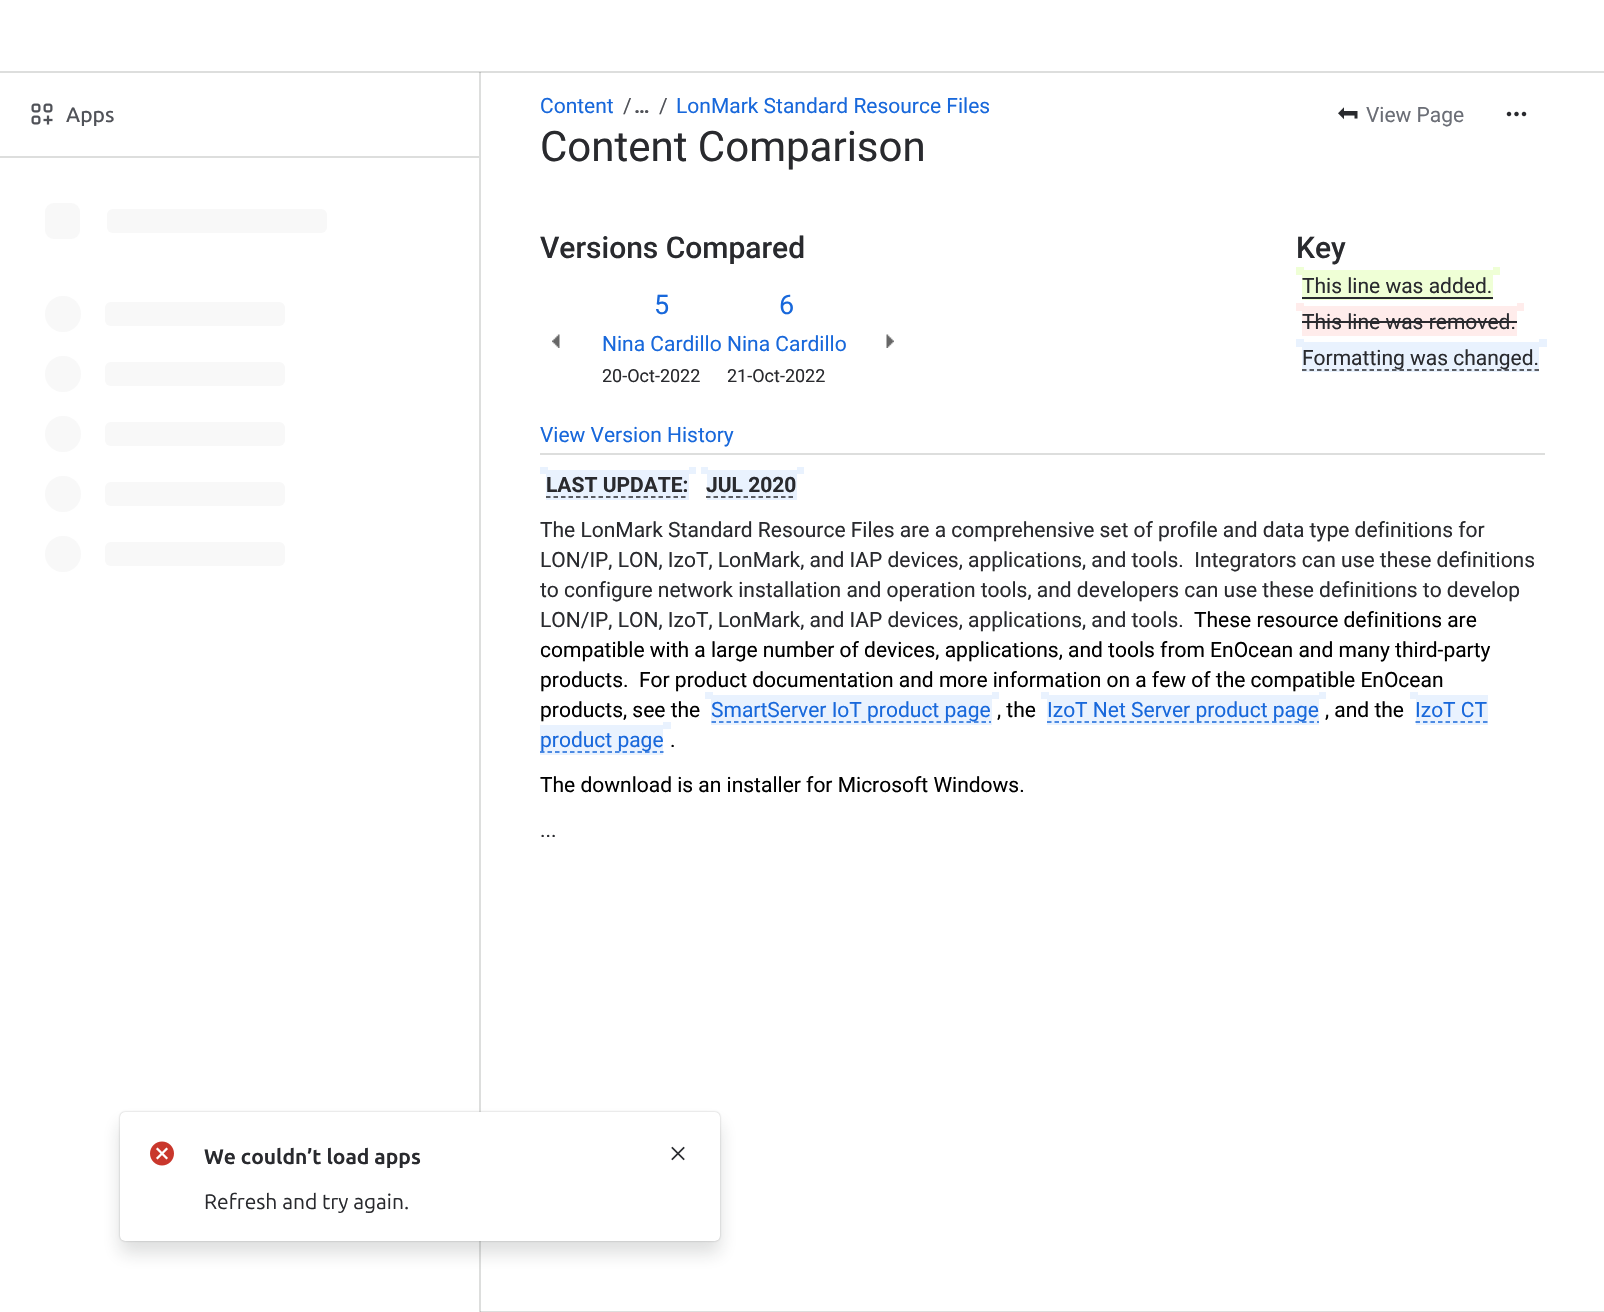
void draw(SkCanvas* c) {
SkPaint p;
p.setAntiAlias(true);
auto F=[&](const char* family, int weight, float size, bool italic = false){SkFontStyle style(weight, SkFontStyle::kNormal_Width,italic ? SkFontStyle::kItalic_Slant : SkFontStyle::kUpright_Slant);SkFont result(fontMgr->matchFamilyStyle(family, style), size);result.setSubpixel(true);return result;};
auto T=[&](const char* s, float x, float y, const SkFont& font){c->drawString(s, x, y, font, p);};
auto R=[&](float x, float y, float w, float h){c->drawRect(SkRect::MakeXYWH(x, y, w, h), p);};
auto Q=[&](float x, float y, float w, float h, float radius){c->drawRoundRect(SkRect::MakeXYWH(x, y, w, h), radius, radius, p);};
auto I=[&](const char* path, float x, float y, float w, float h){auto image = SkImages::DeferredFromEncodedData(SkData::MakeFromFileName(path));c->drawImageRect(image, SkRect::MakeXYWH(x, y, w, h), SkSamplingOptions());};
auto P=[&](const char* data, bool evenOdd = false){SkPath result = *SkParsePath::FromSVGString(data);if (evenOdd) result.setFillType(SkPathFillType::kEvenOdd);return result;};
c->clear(0xffffffff);
p.setColor(0xffdddedd);
R(0,71,1604,2);
R(479,72,2,1240);
p.setColor(0xffc0c1c0);
R(479,72,2,1);
I("1.png",31,103,22,22);
auto f1 = F("Ubuntu",500,21);
p.setColor(0xff505258);
T("Apps",66,122,f1);
p.setColor(0xffdddedd);
R(0,156,479,2);
p.setColor(0xfff8f8f8);
Q(45,203,35,36,9);
Q(107,209,220,24,6);
c->drawCircle(63,314,18,p);
Q(105,302,180,24,6);
c->drawCircle(63,374,18,p);
Q(105,362,180,24,6);
c->drawCircle(63,434,18,p);
Q(105,422,180,24,6);
c->drawCircle(63,494,18,p);
Q(105,482,180,24,6);
c->drawCircle(63,554,18,p);
Q(105,542,180,24,6);
p.setColor(0xffdddedd);
R(480,1311,1124,1);
p.setColor(0xffc0c1c0);
R(480,1311,1,1);
auto f2 = F("Roboto",400,21);
p.setColor(0xff1868db);
T("Content",540,113,f2);
p.setColor(0xff505258);
T("/",623,113,f2);
auto f3 = F("Roboto",700,21);
T("…",634,113,f3);
T("/",659,113,f2);
p.setColor(0xff1868db);
T("LonMark Standard Resource Files",676,113,f2);
auto f4 = F("Roboto",400,42);
p.setColor(0xff292a2e);
T("Content Comparison",540,161,f4);
I("2.png",1338,107,20,13);
p.setColor(0xff6b6e76);
T("View Page",1366,122,f2);
I("3.png",1506,111,21,6);
p.setColor(0xffdddedd);
R(540,453,1005,2);
auto f5 = F("Roboto",500,30);
p.setColor(0xff292a2e);
T("Versions Compared",540,258,f5);
T("Key",1296,258,f5);
p.setColor(0xffefffd6);
R(1296,267,8,8);
R(1302,270,191,30);
p.setColor(0xff292a2e);
T("This line was added.",1302,293,f2);
p.setColor(0xffefffd6);
R(1493,267,7,8);
p.setColor(0xff292a2e);
R(1302,297,191,2);
p.setColor(0xffffeceb);
R(1296,303,8,8);
R(1302,306,215,30);
p.setColor(0xff292a2e);
T("This line was removed.",1302,329,f2);
p.setColor(0xffffeceb);
R(1517,303,7,8);
p.setColor(0xff292a2e);
R(1302,321,215,2);
p.setColor(0xffe9f2fe);
R(1296,339,8,8);
R(1302,342,237,30);
p.setStroke(true);
p.setStrokeWidth(1.5);
p.setColor(0xff292a2e);
p.setPathEffect(SkDashPathEffect::Make({{4.5f,3}}, 0));
c->drawPath(P("M1302 370h237"),p);
p.setPathEffect(nullptr);
p.setStroke(false);
T("Formatting was changed.",1302,365,f2);
p.setColor(0xffe9f2fe);
R(1539,339,8,8);
auto f6 = F("Roboto",400,27);
p.setColor(0xff1868db);
T("5",654,314,f6);
T("6",779,314,f6);
T("Nina Cardillo",602,351,f2);
T("Nina Cardillo",727,351,f2);
auto f7 = F("Roboto",400,18);
p.setColor(0xff292a2e);
T("20-Oct-2022",602,382,f7);
T("21-Oct-2022",727,382,f7);
I("4.png",552,334,8,14);
I("5.png",886,334,8,14);
p.setColor(0xff1868db);
T("View Version History",540,442,f2);
p.setColor(0xffe9f2fe);
R(540,467,8,7);
R(546,470,143,30);
p.setColor(0xff292a2e);
T("LAST UPDATE:",546,492,f3);
p.setColor(0xffe9f2fe);
R(689,467,7,7);
p.setStroke(true);
p.setColor(0xff292a2e);
p.setPathEffect(SkDashPathEffect::Make({{4.5f,3}}, 0));
c->drawPath(P("M546 497h142.5"),p);
p.setPathEffect(nullptr);
p.setStroke(false);
p.setColor(0xffe9f2fe);
R(701,467,7,7);
R(707,470,90,30);
p.setColor(0xff292a2e);
T("JUL 2020",706,492,f3);
p.setColor(0xffe9f2fe);
R(797,467,7,7);
p.setStroke(true);
p.setColor(0xff292a2e);
p.setPathEffect(SkDashPathEffect::Make({{4.5f,3}}, 0));
c->drawPath(P("M706 497h90"),p);
p.setPathEffect(nullptr);
p.setStroke(false);
T("The LonMark Standard Resource Files are a comprehensive set of profile and data type definitions for",540,537,f2);
T("LON/IP, LON, IzoT, LonMark, and IAP devices, applications, and tools.  Integrators can use these definitions",540,567,f2);
T("to configure network installation and operation tools, and developers can use these definitions to develop",540,597,f2);
T("LON/IP, LON, IzoT, LonMark, and IAP devices, applications, and tools.",540,627,f2);
p.setColor(0xff000000);
T("These resource definitions are",1194,627,f2);
T("compatible with a large number of devices, applications, and tools from EnOcean and many third-party",540,657,f2);
T("products.  For product documentation and more information on a few of the compatible EnOcean",540,687,f2);
T("products, see the",540,717,f2);
p.setColor(0xffe9f2fe);
R(705,692,8,7);
R(711,695,281,30);
p.setStroke(true);
p.setColor(0xff1868db);
p.setPathEffect(SkDashPathEffect::Make({{4.5f,3}}, 0));
c->drawPath(P("M711.5 722h279.5"),p);
p.setPathEffect(nullptr);
p.setStroke(false);
T("SmartServer IoT product page",711,717,f2);
p.setColor(0xff000000);
T(", the",997,717,f2);
p.setColor(0xffe9f2fe);
R(992,692,7,7);
R(1041,692,8,7);
R(1047,695,272,30);
p.setStroke(true);
p.setColor(0xff1868db);
p.setPathEffect(SkDashPathEffect::Make({{4.5f,3}}, 0));
c->drawPath(P("M1047 722h272"),p);
p.setPathEffect(nullptr);
p.setStroke(false);
T("IzoT Net Server product page",1047,717,f2);
p.setColor(0xff000000);
T(", and the",1325,717,f2);
p.setColor(0xffe9f2fe);
R(1319,692,7,7);
R(1410,692,8,7);
R(1416,695,72,30);
p.setColor(0xff1868db);
T("IzoT CT",1415,717,f2);
p.setStroke(true);
p.setPathEffect(SkDashPathEffect::Make({{4.5f,3}}, 0));
c->drawPath(P("M1415.5 722h72"),p);
p.setPathEffect(nullptr);
p.setStroke(false);
p.setColor(0xffe9f2fe);
R(540,725,123,30);
p.setStroke(true);
p.setColor(0xff1868db);
p.setPathEffect(SkDashPathEffect::Make({{4.5f,3}}, 0));
c->drawPath(P("M540 752h123.5"),p);
p.setPathEffect(nullptr);
p.setStroke(false);
T("product page",540,747,f2);
p.setColor(0xffe9f2fe);
R(663,722,8,7);
p.setColor(0xff000000);
T(".",670,747,f2);
T("The download is an installer for Microsoft Windows.",540,792,f2);
p.setColor(0xff292a2e);
T("...",540,837,f2);
p.setColor(0x4f1e1f21);
p.setMaskFilter(SkMaskFilter::MakeBlur(kNormal_SkBlurStyle, 1));
c->drawRoundRect(SkRect::MakeXYWH(120,1112,600,129),5,5,p);
p.setMaskFilter(nullptr);
p.setColor(0x261e1f21);
p.setMaskFilter(SkMaskFilter::MakeBlur(kNormal_SkBlurStyle, 9));
c->drawRoundRect(SkRect::MakeXYWH(120,1124,600,129),5,5,p);
p.setMaskFilter(nullptr);
p.setColor(0xffffffff);
Q(120,1112,600,129,5);
I("6.png",150,1141,24,25);
auto f8 = F("Ubuntu",700,21);
p.setColor(0xff292a2e);
T("We couldn’t load apps",204,1164,f8);
I("7.png",671,1146,14,15);
auto f9 = F("Ubuntu",400,21);
T("Refresh and try again.",204,1209,f9);
}
